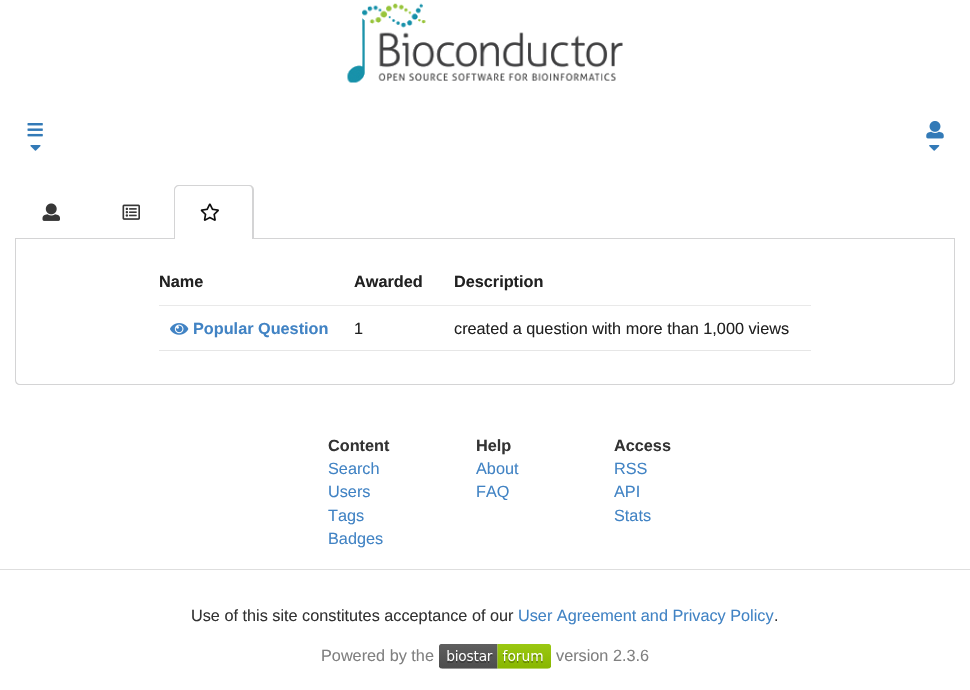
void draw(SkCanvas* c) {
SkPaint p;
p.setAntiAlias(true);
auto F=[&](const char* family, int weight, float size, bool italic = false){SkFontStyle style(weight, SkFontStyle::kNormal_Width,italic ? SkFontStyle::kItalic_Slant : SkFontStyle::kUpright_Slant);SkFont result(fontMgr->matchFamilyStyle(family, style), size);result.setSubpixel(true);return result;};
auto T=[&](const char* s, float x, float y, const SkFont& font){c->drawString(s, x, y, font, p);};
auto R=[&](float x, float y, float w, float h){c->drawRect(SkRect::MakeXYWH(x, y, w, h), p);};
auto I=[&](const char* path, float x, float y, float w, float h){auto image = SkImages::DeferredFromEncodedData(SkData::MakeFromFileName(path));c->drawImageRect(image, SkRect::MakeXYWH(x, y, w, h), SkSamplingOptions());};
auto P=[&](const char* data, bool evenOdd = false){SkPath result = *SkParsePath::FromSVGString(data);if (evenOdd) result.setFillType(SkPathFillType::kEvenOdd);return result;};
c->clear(0xffffffff);
I("1.png",347,3,276,80);
I("2.png",27,123,16,14);
I("3.png",30,145,11,6);
I("4.png",926,121,18,18);
I("5.png",929,145,11,6);
p.setColor(0xffd4d4d5);
R(15,238,940,1);
I("6.png",42,203,18,18);
I("7.png",122,204,18,16);
p.setColor(0xffffffff);
c->drawPath(P("M179 185h70c3 0 5 2 5 5v49h-80v-49c0-3 2-5 5-5z"),p);
p.setColor(0xffd4d4d5);
c->drawPath(P("M179 185h70c3 0 5 2 5 5v49h-80v-49c0-3 2-5 5-5zm0 1h70c2 0 3 2 3 4v49h-77v-49c0-2 2-4 4-4z",true),p);
I("8.png",200,203,19,18);
c->drawPath(P("M15 239h940v141c0 3-2 5-5 5h-930c-3 0-5-2-5-5zm1 0h938v141c0 2-2 4-4 4h-930c-2 0-4-2-4-4z",true),p);
p.setColor(0xffe9e9e9);
R(159,305,652,1);
auto f1 = F("Liberation Sans",700,16.25);
p.setColor(0xff212121);
T("Name",159,287,f1);
T("Awarded",354,287,f1);
T("Description",454,287,f1);
p.setColor(0xffe6e6e6);
R(159,350,652,1);
I("9.png",170,323,19,12);
p.setColor(0xff4183c4);
T("Popular Question",193,334,f1);
auto f2 = F("Liberation Sans",400,16.25);
p.setColor(0xff212121);
T("1",354,334,f2);
T("created a question with more than 1,000 views",454,334,f2);
p.setColor(0xff333333);
T("Content",328,451,f1);
p.setColor(0xff4183c4);
T("Search",328,474,f2);
T("Users",328,497,f2);
T("Tags",328,521,f2);
T("Badges",328,544,f2);
p.setColor(0xff333333);
T("Help",476,451,f1);
p.setColor(0xff4183c4);
T("About",476,474,f2);
T("FAQ",476,497,f2);
p.setColor(0xff333333);
T("Access",614,451,f1);
p.setColor(0xff4183c4);
T("RSS",614,474,f2);
T("API",614,497,f2);
T("Stats",614,521,f2);
p.setColor(0xffdedede);
R(0,569,970,1);
p.setColor(0xff333333);
T("Use of this site constitutes acceptance of our",191,621,f2);
p.setColor(0xff4183c4);
T("User Agreement and Privacy Policy",518,621,f2);
p.setColor(0xff333333);
T(".",774,621,f2);
p.setColor(0xff808080);
T("Powered by the",321,661,f2);
I("10.png",439,644,112,25);
T("version 2.3.6",556,661,f2);
}
